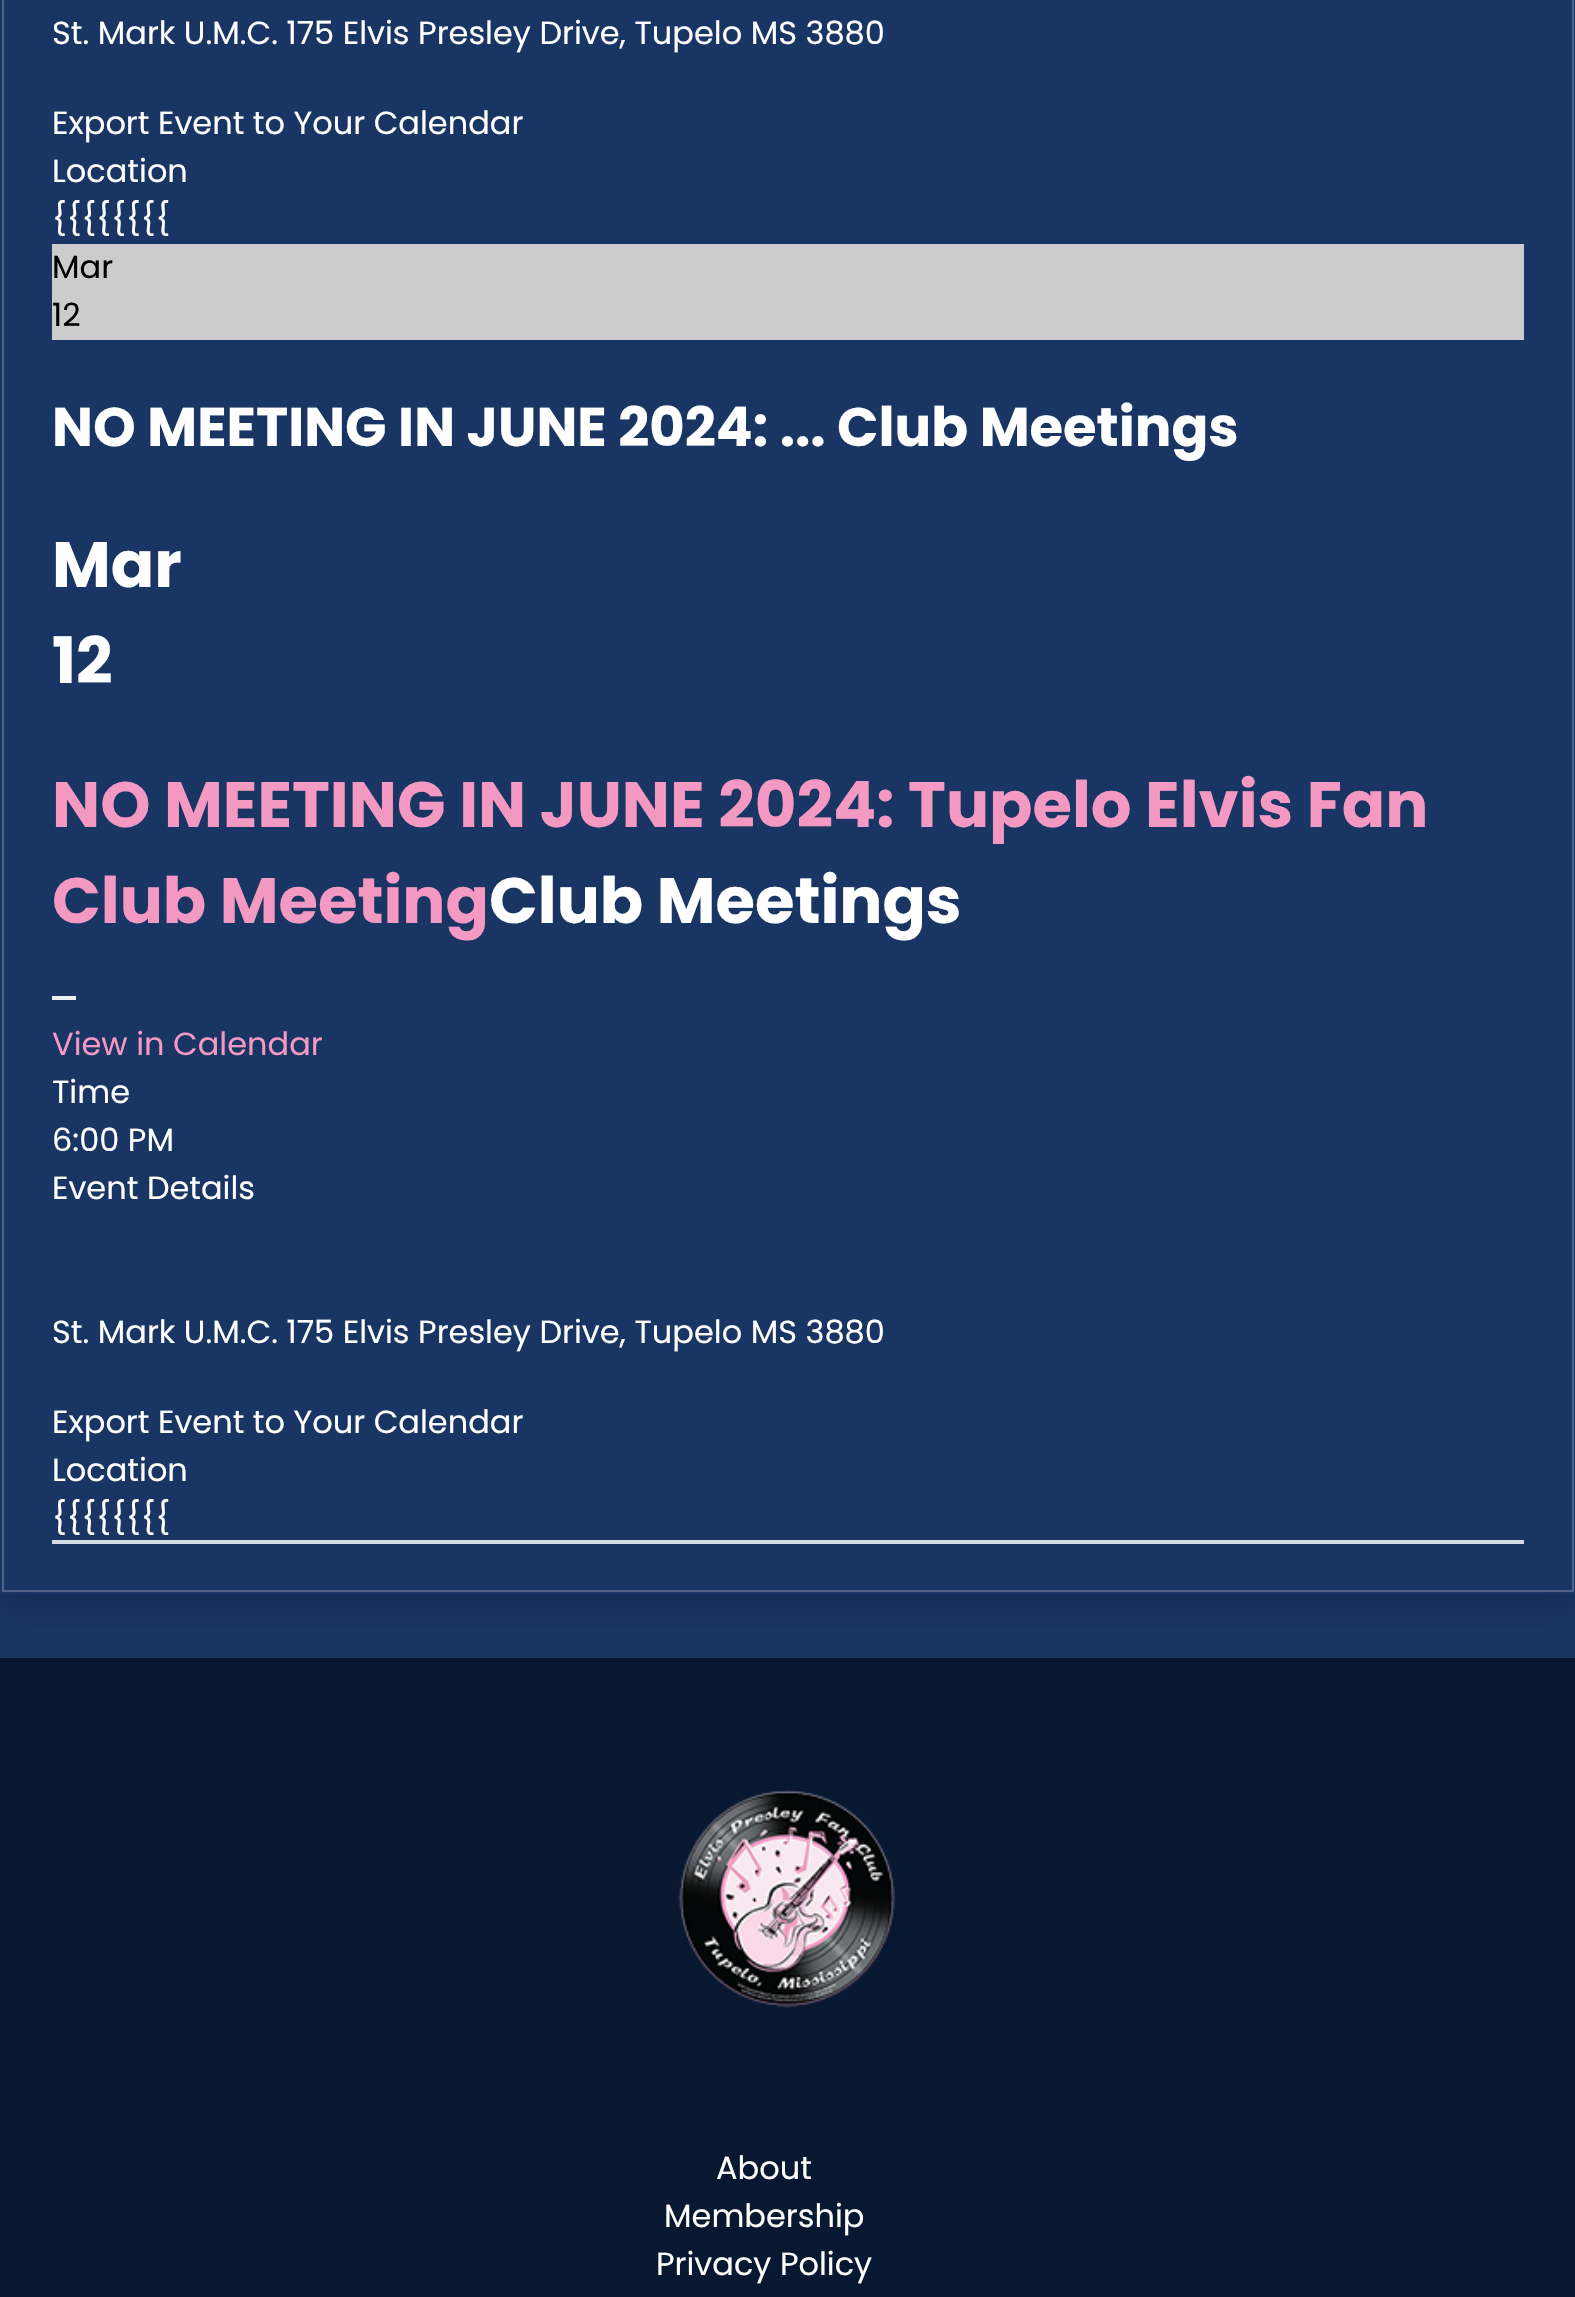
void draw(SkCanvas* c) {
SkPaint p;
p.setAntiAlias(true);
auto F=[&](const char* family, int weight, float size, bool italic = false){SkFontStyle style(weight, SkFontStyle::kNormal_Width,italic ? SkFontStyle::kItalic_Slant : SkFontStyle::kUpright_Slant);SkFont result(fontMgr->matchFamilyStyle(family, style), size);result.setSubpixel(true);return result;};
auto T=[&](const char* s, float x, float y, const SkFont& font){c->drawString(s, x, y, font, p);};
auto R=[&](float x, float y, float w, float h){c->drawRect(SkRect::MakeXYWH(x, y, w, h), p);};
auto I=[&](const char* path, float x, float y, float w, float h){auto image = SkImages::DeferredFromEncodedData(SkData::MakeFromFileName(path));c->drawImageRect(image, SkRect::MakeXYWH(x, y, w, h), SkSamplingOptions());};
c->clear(0xff091831);
p.setColor(0xff193564);
R(0,0,1575,1658);
c->save();
c->clipRect(SkRect::MakeXYWH(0,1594,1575,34));
p.setColor(0x26000000);
p.setMaskFilter(SkMaskFilter::MakeBlur(kNormal_SkBlurStyle, 16));
c->drawRect(SkRect::MakeXYWH(0,-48,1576,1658),p);
p.setMaskFilter(nullptr);
c->restore();
p.setStroke(true);
p.setStrokeWidth(2);
p.setColor(0xff4d6286);
c->drawRect(SkRect::MakeXYWH(3,-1,1570,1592),p);
auto f1 = F("Poppins",400,32);
p.setStroke(false);
p.setColor(0xffffffff);
T("St. Mark U.M.C. 175 Elvis Presley Drive, Tupelo MS 3880",52,44,f1);
T("Export Event to Your Calendar",52,134,f1);
T("Location",52,182,f1);
T("{{{{{{{{",52,230,f1);
p.setColor(0xffcccccc);
R(52,244,1472,96);
p.setColor(0xff000000);
T("Mar",52,278,f1);
T("12",52,326,f1);
auto f2 = F("Poppins",700,54.4);
p.setColor(0xffffffff);
T("NO MEETING IN JUNE 2024: ...",52,446,f2);
T("Club Meetings",837,446,f2);
auto f3 = F("Poppins",700,64);
T("Mar",52,587,f3);
T("12",52,683,f3);
p.setColor(0xfff499c2);
T("NO MEETING IN JUNE 2024: Tupelo Elvis Fan",52,827,f3);
T("Club Meeting",52,923,f3);
p.setColor(0xffffffff);
T("Club Meetings",489,923,f3);
p.setColor(0xffefefef);
R(52,996,24,4);
p.setColor(0xfff499c2);
T("View in Calendar",52,1055,f1);
p.setColor(0xffffffff);
T("Time",52,1103,f1);
T("6:00 PM",52,1151,f1);
T("Event Details",52,1199,f1);
T("St. Mark U.M.C. 175 Elvis Presley Drive, Tupelo MS 3880",52,1343,f1);
T("Export Event to Your Calendar",52,1433,f1);
T("Location",52,1481,f1);
T("{{{{{{{{",52,1529,f1);
p.setColor(0xffd4dce3);
R(52,1540,1472,4);
I("1.png",678,1790,217,218);
p.setColor(0xffffffff);
T("About",716,2179,f1);
T("Membership",664,2227,f1);
T("Privacy Policy",656,2275,f1);
}
